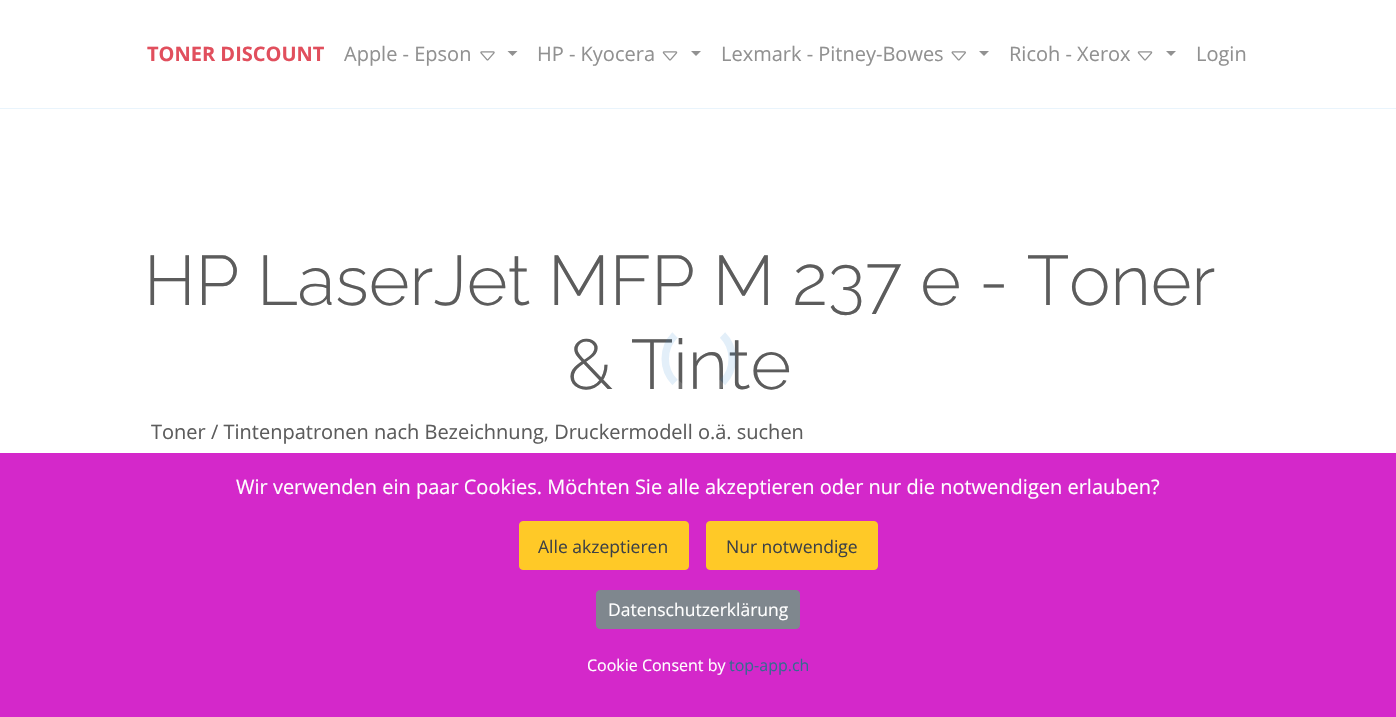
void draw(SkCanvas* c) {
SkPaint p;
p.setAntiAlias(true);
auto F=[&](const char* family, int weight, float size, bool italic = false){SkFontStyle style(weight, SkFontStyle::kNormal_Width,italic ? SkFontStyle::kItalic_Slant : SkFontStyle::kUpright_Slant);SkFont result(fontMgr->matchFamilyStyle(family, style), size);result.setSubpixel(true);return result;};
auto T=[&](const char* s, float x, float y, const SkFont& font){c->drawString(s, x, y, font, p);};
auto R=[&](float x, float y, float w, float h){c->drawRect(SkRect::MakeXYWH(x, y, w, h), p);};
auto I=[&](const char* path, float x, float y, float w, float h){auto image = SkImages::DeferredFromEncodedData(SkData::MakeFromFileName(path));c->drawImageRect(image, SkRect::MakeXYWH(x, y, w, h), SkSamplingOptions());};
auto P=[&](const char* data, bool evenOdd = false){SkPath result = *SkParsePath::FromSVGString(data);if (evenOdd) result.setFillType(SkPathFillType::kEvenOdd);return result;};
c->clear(0xffffffff);
p.setColor(0xffe9f4fc);
R(0,108,1396,1);
auto f1 = F("Open Sans",700,20);
p.setColor(0xffe14f5d);
T("TONER DISCOUNT",147,61,f1);
auto f2 = F("Open Sans",400,20);
p.setColor(0xff919191);
T("Apple - Epson",344,61,f2);
I("1.png",480,51,15,10);
c->drawPath(P("M507.5 51h10l-5 5z"),p);
T("HP - Kyocera",537,61,f2);
I("2.png",662,51,16,10);
c->drawPath(P("M691 51h10l-5 5z"),p);
T("Lexmark - Pitney-Bowes",721,61,f2);
I("3.png",951,51,15,10);
c->drawPath(P("M979 51h10l-5 5z"),p);
T("Ricoh - Xerox",1009,61,f2);
I("2.png",1137,51,16,10);
c->drawPath(P("M1166 51h10l-5 5z"),p);
T("Login",1196,61,f2);
auto f3 = F("Raleway",300,70);
p.setColor(0xff5c5c5c);
T("HP LaserJet MFP M 237 e - Toner",144,305,f3);
T("& Tinte",567,389,f3);
T("Toner / Tintenpatronen nach Bezeichnung, Druckermodell o.ä. suchen",151,439,f2);
p.setStroke(true);
p.setStrokeWidth(7.5);
p.setColor(0x212487ce);
c->drawPath(P("M722.5 335c13 13 13 34.5 0 47.5"),p);
p.setColor(0x21ffffff);
c->drawPath(P("M722.5 382.5c-13 13-34.5 13-47.5 0"),p);
p.setColor(0x212487ce);
c->drawPath(P("M675 382.5c-13-13-13-34.5 0-47.5"),p);
p.setStroke(false);
p.setColor(0xffd428ca);
R(0,453,1396,264);
p.setColor(0xffffffff);
T("Wir verwenden ein paar Cookies. Möchten Sie alle akzeptieren oder nur die notwendigen erlauben?",236,494,f2);
p.setColor(0xffffc927);
c->drawRoundRect(SkRect::MakeXYWH(519.5,521.5,169,48),3.5,3.5,p);
p.setStroke(true);
p.setStrokeWidth(1);
c->drawRoundRect(SkRect::MakeXYWH(519.5,521.5,169,48),3.5,3.5,p);
auto f4 = F("Open Sans",400,17.5);
p.setStroke(false);
p.setColor(0xff3e4145);
T("Alle akzeptieren",538,553,f4);
p.setColor(0xffffc927);
c->drawRoundRect(SkRect::MakeXYWH(706.5,521.5,171,48),3.5,3.5,p);
p.setStroke(true);
c->drawRoundRect(SkRect::MakeXYWH(706.5,521.5,171,48),3.5,3.5,p);
p.setStroke(false);
p.setColor(0xff3e4145);
T("Nur notwendige",726,553,f4);
p.setColor(0xff7f878e);
c->drawRoundRect(SkRect::MakeXYWH(596.5,590.5,203,38),3.5,3.5,p);
p.setStroke(true);
c->drawRoundRect(SkRect::MakeXYWH(596.5,590.5,203,38),3.5,3.5,p);
p.setStroke(false);
p.setColor(0xffffffff);
T("Datenschutzerklärung",608,616,f4);
auto f5 = F("Open Sans",400,16);
T("Cookie Consent by",587,671,f5);
p.setColor(0xff356a90);
T("top-app.ch",729,671,f5);
}
